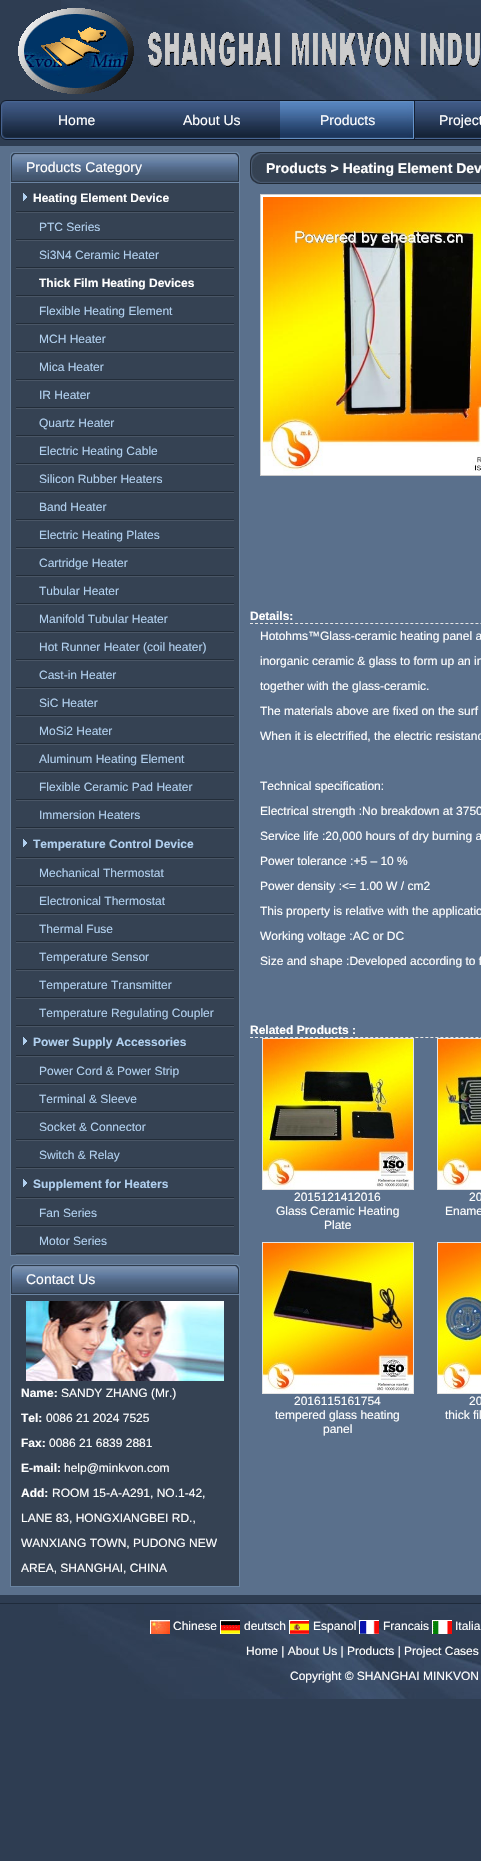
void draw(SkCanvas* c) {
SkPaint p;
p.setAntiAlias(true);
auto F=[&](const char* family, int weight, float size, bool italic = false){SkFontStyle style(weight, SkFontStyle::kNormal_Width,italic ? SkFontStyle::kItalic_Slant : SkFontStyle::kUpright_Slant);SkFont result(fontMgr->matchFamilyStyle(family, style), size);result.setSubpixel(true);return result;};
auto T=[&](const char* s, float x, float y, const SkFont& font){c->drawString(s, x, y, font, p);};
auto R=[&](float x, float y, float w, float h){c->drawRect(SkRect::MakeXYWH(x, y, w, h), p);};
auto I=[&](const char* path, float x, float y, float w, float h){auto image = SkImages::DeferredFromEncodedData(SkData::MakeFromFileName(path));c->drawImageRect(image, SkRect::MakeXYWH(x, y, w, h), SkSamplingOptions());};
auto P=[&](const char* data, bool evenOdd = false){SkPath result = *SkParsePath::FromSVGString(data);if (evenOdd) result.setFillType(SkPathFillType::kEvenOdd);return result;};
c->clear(0xff2e3d52);
I("1.png",61,0,420,100);
I("2.png",18,8,462,86);
I("3.png",7,100,474,40);
I("4.png",0,100,7,40);
auto f1 = F("Liberation Sans",400,14);
p.setColor(0xffffffff);
T("Home",58,125,f1);
T("About Us",183,125,f1);
I("5.png",280,101,135,38);
T("Products",320,125,f1);
T("Project",439,125,f1);
p.setColor(0xff5a708c);
R(0,146,481,1449);
p.setColor(0xff354253);
R(11,183,228,1072);
I("6.png",10,152,225,31);
I("7.png",10,152,5,30);
p.setColor(0xffffffff);
T("Products Category",26,172,f1);
I("8.png",235,152,5,31);
p.setColor(0xff6a84a1);
R(239,183,1,1073);
R(10,1255,230,1);
R(10,183,1,1073);
I("9.png",16,211,218,2);
I("10.png",23,193,4,8);
auto f2 = F("Liberation Sans",700,12);
p.setColor(0xffffffff);
T("Heating Element Device",33,202,f2);
I("9.png",16,239,218,2);
auto f3 = F("Liberation Sans",400,12);
p.setColor(0xffb1d0ef);
T("PTC Series",39,231,f3);
I("9.png",16,267,218,2);
T("Si3N4 Ceramic Heater",39,259,f3);
I("9.png",16,295,218,2);
p.setColor(0xffffffff);
T("Thick Film Heating Devices",39,287,f2);
I("9.png",16,323,218,2);
p.setColor(0xffb1d0ef);
T("Flexible Heating Element",39,315,f3);
I("9.png",16,351,218,2);
T("MCH Heater",39,343,f3);
I("9.png",16,379,218,2);
T("Mica Heater",39,371,f3);
I("9.png",16,407,218,2);
T("IR Heater",39,399,f3);
I("9.png",16,435,218,2);
T("Quartz Heater",39,427,f3);
I("9.png",16,463,218,2);
T("Electric Heating Cable",39,455,f3);
I("9.png",16,491,218,2);
T("Silicon Rubber Heaters",39,483,f3);
I("9.png",16,519,218,2);
T("Band Heater",39,511,f3);
I("9.png",16,547,218,2);
T("Electric Heating Plates",39,539,f3);
I("9.png",16,575,218,2);
T("Cartridge Heater",39,567,f3);
I("9.png",16,603,218,2);
T("Tubular Heater",39,595,f3);
I("9.png",16,631,218,2);
T("Manifold Tubular Heater",39,623,f3);
I("9.png",16,659,218,2);
T("Hot Runner Heater (coil heater)",39,651,f3);
I("9.png",16,687,218,2);
T("Cast-in Heater",39,679,f3);
I("9.png",16,715,218,2);
T("SiC Heater",39,707,f3);
I("9.png",16,743,218,2);
T("MoSi2 Heater",39,735,f3);
I("9.png",16,771,218,2);
T("Aluminum Heating Element",39,763,f3);
I("9.png",16,799,218,2);
T("Flexible Ceramic Pad Heater",39,791,f3);
I("9.png",16,827,218,2);
T("Immersion Heaters",39,819,f3);
I("9.png",16,857,218,2);
I("10.png",23,839,4,8);
T("Temperature Control Device",33,848,f2);
I("9.png",16,885,218,2);
T("Mechanical Thermostat",39,877,f3);
I("9.png",16,913,218,2);
T("Electronical Thermostat",39,905,f3);
I("9.png",16,941,218,2);
T("Thermal Fuse",39,933,f3);
I("9.png",16,969,218,2);
T("Temperature Sensor",39,961,f3);
I("9.png",16,997,218,2);
T("Temperature Transmitter",39,989,f3);
I("9.png",16,1025,218,2);
T("Temperature Regulating Coupler",39,1017,f3);
I("9.png",16,1055,218,2);
I("10.png",23,1037,4,8);
T("Power Supply Accessories",33,1046,f2);
I("9.png",16,1083,218,2);
T("Power Cord & Power Strip",39,1075,f3);
I("9.png",16,1111,218,2);
T("Terminal & Sleeve",39,1103,f3);
I("9.png",16,1139,218,2);
T("Socket & Connector",39,1131,f3);
I("9.png",16,1167,218,2);
T("Switch & Relay",39,1159,f3);
I("9.png",16,1197,218,2);
I("10.png",23,1179,4,8);
T("Supplement for Heaters",33,1188,f2);
I("9.png",16,1225,218,2);
T("Fan Series",39,1217,f3);
I("9.png",16,1253,218,2);
T("Motor Series",39,1245,f3);
p.setColor(0xff354253);
R(11,1295,228,291);
I("6.png",10,1264,225,31);
I("7.png",10,1264,5,30);
p.setColor(0xffffffff);
T("Contact Us",26,1284,f1);
I("8.png",235,1264,5,31);
p.setColor(0xff6a84a1);
R(239,1295,1,292);
R(10,1586,230,1);
R(10,1295,1,292);
I("11.png",26,1301,198,80);
p.setColor(0xffffffff);
T("Name:",21,1397,f2);
T("SANDY ZHANG (Mr.)",61,1397,f3);
T("Tel:",21,1422,f2);
T("0086 21 2024 7525",46,1422,f3);
T("Fax:",21,1447,f2);
T("0086 21 6839 2881",49,1447,f3);
T("E-mail:",21,1472,f2);
T("help@minkvon.com",64,1472,f3);
T("Add:",21,1497,f2);
T("ROOM 15-A-A291, NO.1-42,",52,1497,f3);
T("LANE 83, HONGXIANGBEI RD.,",21,1522,f3);
T("WANXIANG TOWN, PUDONG NEW",21,1547,f3);
T("AREA, SHANGHAI, CHINA",21,1572,f3);
I("12.png",260,152,221,32);
I("13.png",250,152,10,32);
auto f4 = F("Liberation Sans",700,14);
T("Products > Heating Element Dev",266,173,f4);
c->drawRect(SkRect::MakeXYWH(260.5,194.5,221,281),p);
p.setStroke(true);
p.setStrokeWidth(1);
p.setColor(0xffcccccc);
c->drawRect(SkRect::MakeXYWH(260.5,194.5,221,281),p);
I("14.png",263,197,218,278);
p.setColor(0xffe7e7e7);
p.setPathEffect(SkDashPathEffect::Make({{3,2.01f}}, 0));
c->drawPath(P("M250 623.5h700"),p);
p.setPathEffect(nullptr);
p.setStroke(false);
p.setColor(0xffffffff);
T("Details:",250,620,f2);
T("Hotohms™Glass-ceramic heating panel a",260,640,f3);
T("inorganic ceramic & glass to form up an in",260,665,f3);
T("together with the glass-ceramic.",260,690,f3);
T("The materials above are fixed on the surf",260,715,f3);
T("When it is electrified, the electric resistanc",260,740,f3);
T("Technical specification:",260,790,f3);
T("Electrical strength :No breakdown at 3750",260,815,f3);
T("Service life :20,000 hours of dry burning a",260,840,f3);
T("Power tolerance :+5 – 10 %",260,865,f3);
T("Power density :<= 1.00 W / cm2",260,890,f3);
T("This property is relative with the applicatio",260,915,f3);
T("Working voltage :AC or DC",260,940,f3);
T("Size and shape :Developed according to f",260,965,f3);
p.setStroke(true);
p.setColor(0xffe7e7e7);
p.setPathEffect(SkDashPathEffect::Make({{3,2.01f}}, 0));
c->drawPath(P("M250 1037.5h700"),p);
p.setPathEffect(nullptr);
p.setStroke(false);
p.setColor(0xffffffff);
T("Related Products :",250,1034,f2);
p.setStroke(true);
p.setColor(0xffe4e4e4);
c->drawRect(SkRect::MakeXYWH(262.5,1038.5,151,151),p);
I("15.png",263,1039,150,150);
p.setStroke(false);
p.setColor(0xffffffff);
T("2015121412016",294,1201,f3);
T("Glass Ceramic Heating",276,1215,f3);
T("Plate",324,1229,f3);
p.setStroke(true);
p.setColor(0xffe4e4e4);
c->drawRect(SkRect::MakeXYWH(437.5,1038.5,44,151),p);
I("16.png",438,1039,43,150);
p.setStroke(false);
p.setColor(0xffffffff);
T("20",469,1201,f3);
T("Ename",445,1215,f3);
p.setStroke(true);
p.setColor(0xffe4e4e4);
c->drawRect(SkRect::MakeXYWH(262.5,1242.5,151,151),p);
I("17.png",263,1243,150,150);
p.setStroke(false);
p.setColor(0xffffffff);
T("2016115161754",294,1405,f3);
T("tempered glass heating",275,1419,f3);
T("panel",323,1433,f3);
p.setStroke(true);
p.setColor(0xffe4e4e4);
c->drawRect(SkRect::MakeXYWH(437.5,1242.5,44,151),p);
I("18.png",438,1243,43,150);
p.setStroke(false);
p.setColor(0xffffffff);
T("20",469,1405,f3);
T("thick fil",445,1419,f3);
I("19.png",58,1604,423,95);
p.setColor(0xff1f2b3b);
R(0,1603,481,1);
I("20.png",150,1620,20,14);
p.setColor(0xffffffff);
T("Chinese",173,1630,f3);
I("21.png",220,1620,20,14);
T("deutsch",244,1630,f3);
I("22.png",289,1620,20,14);
T("Espanol",313,1630,f3);
I("23.png",359,1620,20,14);
T("Francais",383,1630,f3);
I("24.png",432,1620,20,14);
T("Italia",455,1630,f3);
T("Home | About Us | Products | Project Cases",246,1655,f3);
T("Copyright © SHANGHAI MINKVON",290,1680,f3);
}
